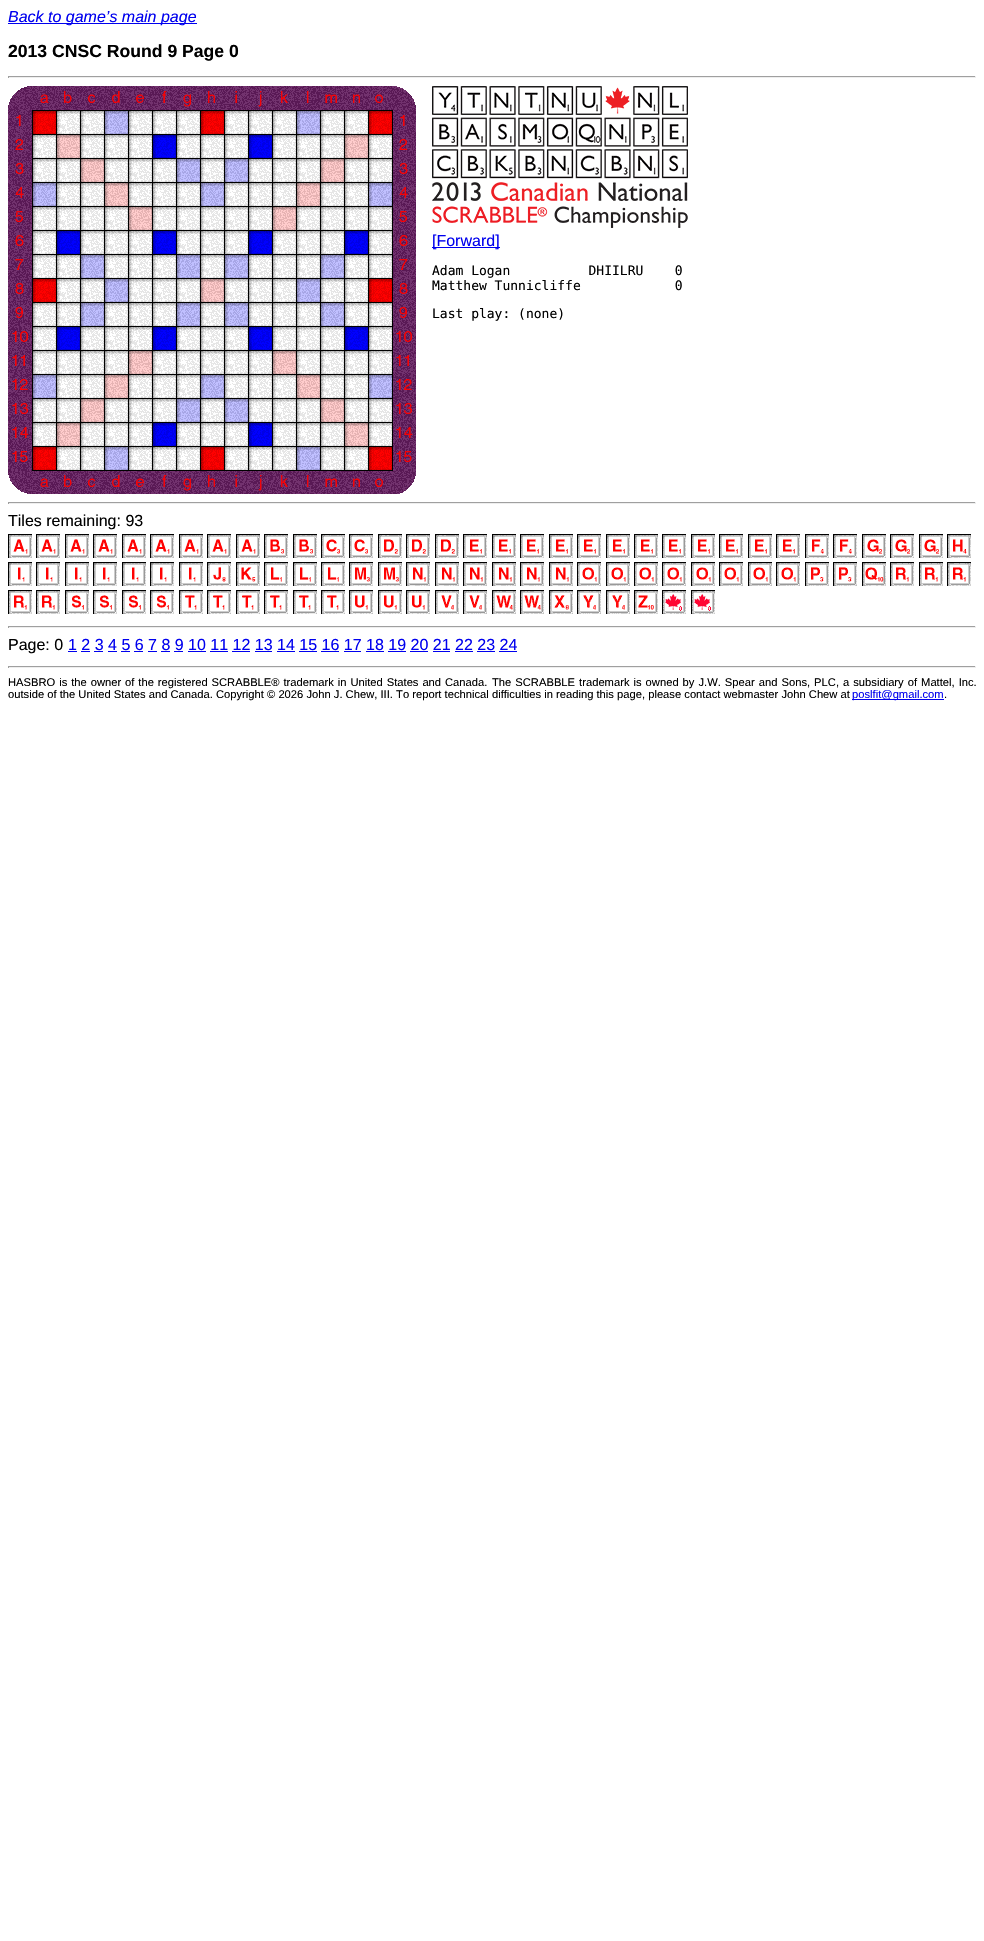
void draw(SkCanvas* c) {
SkPaint p;
p.setAntiAlias(true);
auto F=[&](const char* family, int weight, float size, bool italic = false){SkFontStyle style(weight, SkFontStyle::kNormal_Width,italic ? SkFontStyle::kItalic_Slant : SkFontStyle::kUpright_Slant);SkFont result(fontMgr->matchFamilyStyle(family, style), size);result.setSubpixel(true);return result;};
auto T=[&](const char* s, float x, float y, const SkFont& font){c->drawString(s, x, y, font, p);};
auto L=[&](const char* s, float x, float y, const SkFont& font, const SkPaint& ink, float letter, float word){std::vector<SkGlyphID> glyphs(font.countText(s, strlen(s), SkTextEncoding::kUTF8));std::vector<float> xs(glyphs.size());font.textToGlyphs(s, strlen(s), SkTextEncoding::kUTF8, glyphs);font.getXPos(glyphs, xs, x);float extra = 0;for (size_t i = 0; i < glyphs.size(); i++) {xs[i] += extra;extra += letter + word * (glyphs[i] == font.unicharToGlyph(' '));}c->drawTextBlob(SkTextBlob::MakeFromPosHGlyphs(glyphs, xs, y, font), 0, 0, ink);};
auto R=[&](float x, float y, float w, float h){c->drawRect(SkRect::MakeXYWH(x, y, w, h), p);};
auto I=[&](const char* path, float x, float y, float w, float h){auto image = SkImages::DeferredFromEncodedData(SkData::MakeFromFileName(path));c->drawImageRect(image, SkRect::MakeXYWH(x, y, w, h), SkSamplingOptions());};
c->clear(0xffffffff);
p.setColor(0xff0000ee);
R(8,23,189,1);
auto f1 = F("Liberation Sans",400,16,true);
T("Back to game’s main page",8,22,f1);
auto f2 = F("Liberation Sans",700,17.6);
p.setColor(0xff000000);
T("2013 CNSC Round 9 Page 0",8,57,f2);
p.setColor(0xff9f9f9f);
R(8,76,968,1);
p.setColor(0xffeeeeee);
R(975,76,1,2);
R(8,77,968,1);
p.setColor(0xff9f9f9f);
R(8,76,1,2);
I("1.png",8,86,408,24);
I("2.png",8,110,24,360);
I("3.png",32,110,24,24);
I("4.png",56,110,24,24);
I("4.png",80,110,24,24);
I("5.png",104,110,24,24);
I("4.png",128,110,24,24);
I("4.png",152,110,24,24);
I("4.png",176,110,24,24);
I("3.png",200,110,24,24);
I("4.png",224,110,24,24);
I("4.png",248,110,24,24);
I("4.png",272,110,24,24);
I("5.png",296,110,24,24);
I("4.png",320,110,24,24);
I("4.png",344,110,24,24);
I("3.png",368,110,24,24);
I("6.png",392,110,24,360);
I("4.png",32,134,24,24);
I("7.png",56,134,24,24);
I("4.png",80,134,24,24);
I("4.png",104,134,24,24);
I("4.png",128,134,24,24);
I("8.png",152,134,24,24);
I("4.png",176,134,24,24);
I("4.png",200,134,24,24);
I("4.png",224,134,24,24);
I("8.png",248,134,24,24);
I("4.png",272,134,24,24);
I("4.png",296,134,24,24);
I("4.png",320,134,24,24);
I("7.png",344,134,24,24);
I("4.png",368,134,24,24);
I("4.png",32,158,24,24);
I("4.png",56,158,24,24);
I("7.png",80,158,24,24);
I("4.png",104,158,24,24);
I("4.png",128,158,24,24);
I("4.png",152,158,24,24);
I("5.png",176,158,24,24);
I("4.png",200,158,24,24);
I("5.png",224,158,24,24);
I("4.png",248,158,24,24);
I("4.png",272,158,24,24);
I("4.png",296,158,24,24);
I("7.png",320,158,24,24);
I("4.png",344,158,24,24);
I("4.png",368,158,24,24);
I("5.png",32,182,24,24);
I("4.png",56,182,24,24);
I("4.png",80,182,24,24);
I("7.png",104,182,24,24);
I("4.png",128,182,24,24);
I("4.png",152,182,24,24);
I("4.png",176,182,24,24);
I("5.png",200,182,24,24);
I("4.png",224,182,24,24);
I("4.png",248,182,24,24);
I("4.png",272,182,24,24);
I("7.png",296,182,24,24);
I("4.png",320,182,24,24);
I("4.png",344,182,24,24);
I("5.png",368,182,24,24);
I("4.png",32,206,24,24);
I("4.png",56,206,24,24);
I("4.png",80,206,24,24);
I("4.png",104,206,24,24);
I("7.png",128,206,24,24);
I("4.png",152,206,24,24);
I("4.png",176,206,24,24);
I("4.png",200,206,24,24);
I("4.png",224,206,24,24);
I("4.png",248,206,24,24);
I("7.png",272,206,24,24);
I("4.png",296,206,24,24);
I("4.png",320,206,24,24);
I("4.png",344,206,24,24);
I("4.png",368,206,24,24);
I("4.png",32,230,24,24);
I("8.png",56,230,24,24);
I("4.png",80,230,24,24);
I("4.png",104,230,24,24);
I("4.png",128,230,24,24);
I("8.png",152,230,24,24);
I("4.png",176,230,24,24);
I("4.png",200,230,24,24);
I("4.png",224,230,24,24);
I("8.png",248,230,24,24);
I("4.png",272,230,24,24);
I("4.png",296,230,24,24);
I("4.png",320,230,24,24);
I("8.png",344,230,24,24);
I("4.png",368,230,24,24);
I("4.png",32,254,24,24);
I("4.png",56,254,24,24);
I("5.png",80,254,24,24);
I("4.png",104,254,24,24);
I("4.png",128,254,24,24);
I("4.png",152,254,24,24);
I("5.png",176,254,24,24);
I("4.png",200,254,24,24);
I("5.png",224,254,24,24);
I("4.png",248,254,24,24);
I("4.png",272,254,24,24);
I("4.png",296,254,24,24);
I("5.png",320,254,24,24);
I("4.png",344,254,24,24);
I("4.png",368,254,24,24);
I("3.png",32,278,24,24);
I("4.png",56,278,24,24);
I("4.png",80,278,24,24);
I("5.png",104,278,24,24);
I("4.png",128,278,24,24);
I("4.png",152,278,24,24);
I("4.png",176,278,24,24);
I("7.png",200,278,24,24);
I("4.png",224,278,24,24);
I("4.png",248,278,24,24);
I("4.png",272,278,24,24);
I("5.png",296,278,24,24);
I("4.png",320,278,24,24);
I("4.png",344,278,24,24);
I("3.png",368,278,24,24);
I("4.png",32,302,24,24);
I("4.png",56,302,24,24);
I("5.png",80,302,24,24);
I("4.png",104,302,24,24);
I("4.png",128,302,24,24);
I("4.png",152,302,24,24);
I("5.png",176,302,24,24);
I("4.png",200,302,24,24);
I("5.png",224,302,24,24);
I("4.png",248,302,24,24);
I("4.png",272,302,24,24);
I("4.png",296,302,24,24);
I("5.png",320,302,24,24);
I("4.png",344,302,24,24);
I("4.png",368,302,24,24);
I("4.png",32,326,24,24);
I("8.png",56,326,24,24);
I("4.png",80,326,24,24);
I("4.png",104,326,24,24);
I("4.png",128,326,24,24);
I("8.png",152,326,24,24);
I("4.png",176,326,24,24);
I("4.png",200,326,24,24);
I("4.png",224,326,24,24);
I("8.png",248,326,24,24);
I("4.png",272,326,24,24);
I("4.png",296,326,24,24);
I("4.png",320,326,24,24);
I("8.png",344,326,24,24);
I("4.png",368,326,24,24);
I("4.png",32,350,24,24);
I("4.png",56,350,24,24);
I("4.png",80,350,24,24);
I("4.png",104,350,24,24);
I("7.png",128,350,24,24);
I("4.png",152,350,24,24);
I("4.png",176,350,24,24);
I("4.png",200,350,24,24);
I("4.png",224,350,24,24);
I("4.png",248,350,24,24);
I("7.png",272,350,24,24);
I("4.png",296,350,24,24);
I("4.png",320,350,24,24);
I("4.png",344,350,24,24);
I("4.png",368,350,24,24);
I("5.png",32,374,24,24);
I("4.png",56,374,24,24);
I("4.png",80,374,24,24);
I("7.png",104,374,24,24);
I("4.png",128,374,24,24);
I("4.png",152,374,24,24);
I("4.png",176,374,24,24);
I("5.png",200,374,24,24);
I("4.png",224,374,24,24);
I("4.png",248,374,24,24);
I("4.png",272,374,24,24);
I("7.png",296,374,24,24);
I("4.png",320,374,24,24);
I("4.png",344,374,24,24);
I("5.png",368,374,24,24);
I("4.png",32,398,24,24);
I("4.png",56,398,24,24);
I("7.png",80,398,24,24);
I("4.png",104,398,24,24);
I("4.png",128,398,24,24);
I("4.png",152,398,24,24);
I("5.png",176,398,24,24);
I("4.png",200,398,24,24);
I("5.png",224,398,24,24);
I("4.png",248,398,24,24);
I("4.png",272,398,24,24);
I("4.png",296,398,24,24);
I("7.png",320,398,24,24);
I("4.png",344,398,24,24);
I("4.png",368,398,24,24);
I("4.png",32,422,24,24);
I("7.png",56,422,24,24);
I("4.png",80,422,24,24);
I("4.png",104,422,24,24);
I("4.png",128,422,24,24);
I("8.png",152,422,24,24);
I("4.png",176,422,24,24);
I("4.png",200,422,24,24);
I("4.png",224,422,24,24);
I("8.png",248,422,24,24);
I("4.png",272,422,24,24);
I("4.png",296,422,24,24);
I("4.png",320,422,24,24);
I("7.png",344,422,24,24);
I("4.png",368,422,24,24);
I("3.png",32,446,24,24);
I("4.png",56,446,24,24);
I("4.png",80,446,24,24);
I("5.png",104,446,24,24);
I("4.png",128,446,24,24);
I("4.png",152,446,24,24);
I("4.png",176,446,24,24);
I("3.png",200,446,24,24);
I("4.png",224,446,24,24);
I("4.png",248,446,24,24);
I("4.png",272,446,24,24);
I("5.png",296,446,24,24);
I("4.png",320,446,24,24);
I("4.png",344,446,24,24);
I("3.png",368,446,24,24);
I("9.png",8,470,408,24);
I("10.png",432,86,256,142);
p.setColor(0xff0000ee);
R(432,247,68,1);
auto f3 = F("Liberation Sans",400,16);
T("[Forward]",432,246,f3);
auto f4 = F("DejaVu Sans Mono",400,13);
p.setColor(0xff000000);
T("Adam Logan          DHIILRU    0",432,275,f4);
T("Matthew Tunnicliffe            0",432,290,f4);
T("Last play: (none)",432,318,f4);
p.setColor(0xff9f9f9f);
R(8,502,968,1);
p.setColor(0xffeeeeee);
R(975,502,1,2);
R(8,503,968,1);
p.setColor(0xff9f9f9f);
R(8,502,1,2);
p.setColor(0xff000000);
T("Tiles remaining: 93",8,526,f3);
I("11.png",8,534,24,24);
I("11.png",36,534,24,24);
I("11.png",65,534,24,24);
I("11.png",93,534,24,24);
I("11.png",122,534,24,24);
I("11.png",150,534,24,24);
I("11.png",179,534,24,24);
I("11.png",207,534,24,24);
I("11.png",236,534,24,24);
I("12.png",264,534,24,24);
I("12.png",293,534,24,24);
I("13.png",321,534,24,24);
I("13.png",349,534,24,24);
I("14.png",378,534,24,24);
I("14.png",406,534,24,24);
I("14.png",435,534,24,24);
I("15.png",463,534,24,24);
I("15.png",492,534,24,24);
I("15.png",520,534,24,24);
I("15.png",549,534,24,24);
I("15.png",577,534,24,24);
I("15.png",606,534,24,24);
I("15.png",634,534,24,24);
I("15.png",662,534,24,24);
I("15.png",691,534,24,24);
I("15.png",719,534,24,24);
I("15.png",748,534,24,24);
I("15.png",776,534,24,24);
I("16.png",805,534,24,24);
I("16.png",833,534,24,24);
I("17.png",862,534,24,24);
I("17.png",890,534,24,24);
I("17.png",919,534,24,24);
I("18.png",947,534,24,24);
I("19.png",8,562,24,24);
I("19.png",36,562,24,24);
I("19.png",65,562,24,24);
I("19.png",93,562,24,24);
I("19.png",122,562,24,24);
I("19.png",150,562,24,24);
I("19.png",179,562,24,24);
I("20.png",207,562,24,24);
I("21.png",236,562,24,24);
I("22.png",264,562,24,24);
I("22.png",293,562,24,24);
I("22.png",321,562,24,24);
I("23.png",349,562,24,24);
I("23.png",378,562,24,24);
I("24.png",406,562,24,24);
I("24.png",435,562,24,24);
I("24.png",463,562,24,24);
I("24.png",492,562,24,24);
I("24.png",520,562,24,24);
I("24.png",549,562,24,24);
I("25.png",577,562,24,24);
I("25.png",606,562,24,24);
I("25.png",634,562,24,24);
I("25.png",662,562,24,24);
I("25.png",691,562,24,24);
I("25.png",719,562,24,24);
I("25.png",748,562,24,24);
I("25.png",776,562,24,24);
I("26.png",805,562,24,24);
I("26.png",833,562,24,24);
I("27.png",862,562,24,24);
I("28.png",890,562,24,24);
I("28.png",919,562,24,24);
I("28.png",947,562,24,24);
I("28.png",8,590,24,24);
I("28.png",36,590,24,24);
I("29.png",65,590,24,24);
I("29.png",93,590,24,24);
I("29.png",122,590,24,24);
I("29.png",150,590,24,24);
I("30.png",179,590,24,24);
I("30.png",207,590,24,24);
I("30.png",236,590,24,24);
I("30.png",264,590,24,24);
I("30.png",293,590,24,24);
I("30.png",321,590,24,24);
I("31.png",349,590,24,24);
I("31.png",378,590,24,24);
I("31.png",406,590,24,24);
I("32.png",435,590,24,24);
I("32.png",463,590,24,24);
I("33.png",492,590,24,24);
I("33.png",520,590,24,24);
I("34.png",549,590,24,24);
I("35.png",577,590,24,24);
I("35.png",606,590,24,24);
I("36.png",634,590,24,24);
I("37.png",662,590,24,24);
I("37.png",691,590,24,24);
p.setColor(0xff9f9f9f);
R(8,626,968,1);
p.setColor(0xffeeeeee);
R(975,626,1,2);
R(8,627,968,1);
p.setColor(0xff9f9f9f);
R(8,626,1,2);
p.setColor(0xff000000);
T("Page: 0",8,650,f3);
p.setColor(0xff0000ee);
T("1 2 3 4 5 6 7 8 9 10 11 12 13 14 15 16 17 18 19 20 21 22 23 24",68,650,f3);
R(68,651,9,1);
R(81,651,9,1);
R(94,651,9,1);
R(108,651,9,1);
R(121,651,9,1);
R(134,651,9,1);
R(148,651,9,1);
R(161,651,9,1);
R(174,651,9,1);
R(188,651,18,1);
R(210,651,18,1);
R(232,651,18,1);
R(255,651,17,1);
R(277,651,18,1);
R(299,651,18,1);
R(321,651,18,1);
R(344,651,17,1);
R(366,651,18,1);
R(388,651,18,1);
R(410,651,18,1);
R(433,651,17,1);
R(455,651,18,1);
R(477,651,18,1);
R(499,651,18,1);
p.setColor(0xff9f9f9f);
R(8,666,968,1);
p.setColor(0xffeeeeee);
R(975,666,1,2);
R(8,667,968,1);
p.setColor(0xff9f9f9f);
R(8,666,1,2);
auto f5 = F("Liberation Sans",400,11.2);
p.setColor(0xff000000);
L("HASBRO is the owner of the registered SCRABBLE® trademark in United States and Canada.",8,686,f5,p,0,.8);
L("The SCRABBLE trademark is owned by J.W. Spear and Sons, PLC, a subsidiary of Mattel, Inc.",492,686,f5,p,0,.9);
T("outside of the United States and Canada. Copyright © 2026 John J. Chew, III. To report technical difficulties in reading this page, please contact webmaster John Chew at",8,698,f5);
p.setColor(0xff0000ee);
R(852,699,92,1);
T("poslfit@gmail.com",852,698,f5);
p.setColor(0xff000000);
T(".",944,698,f5);
}
